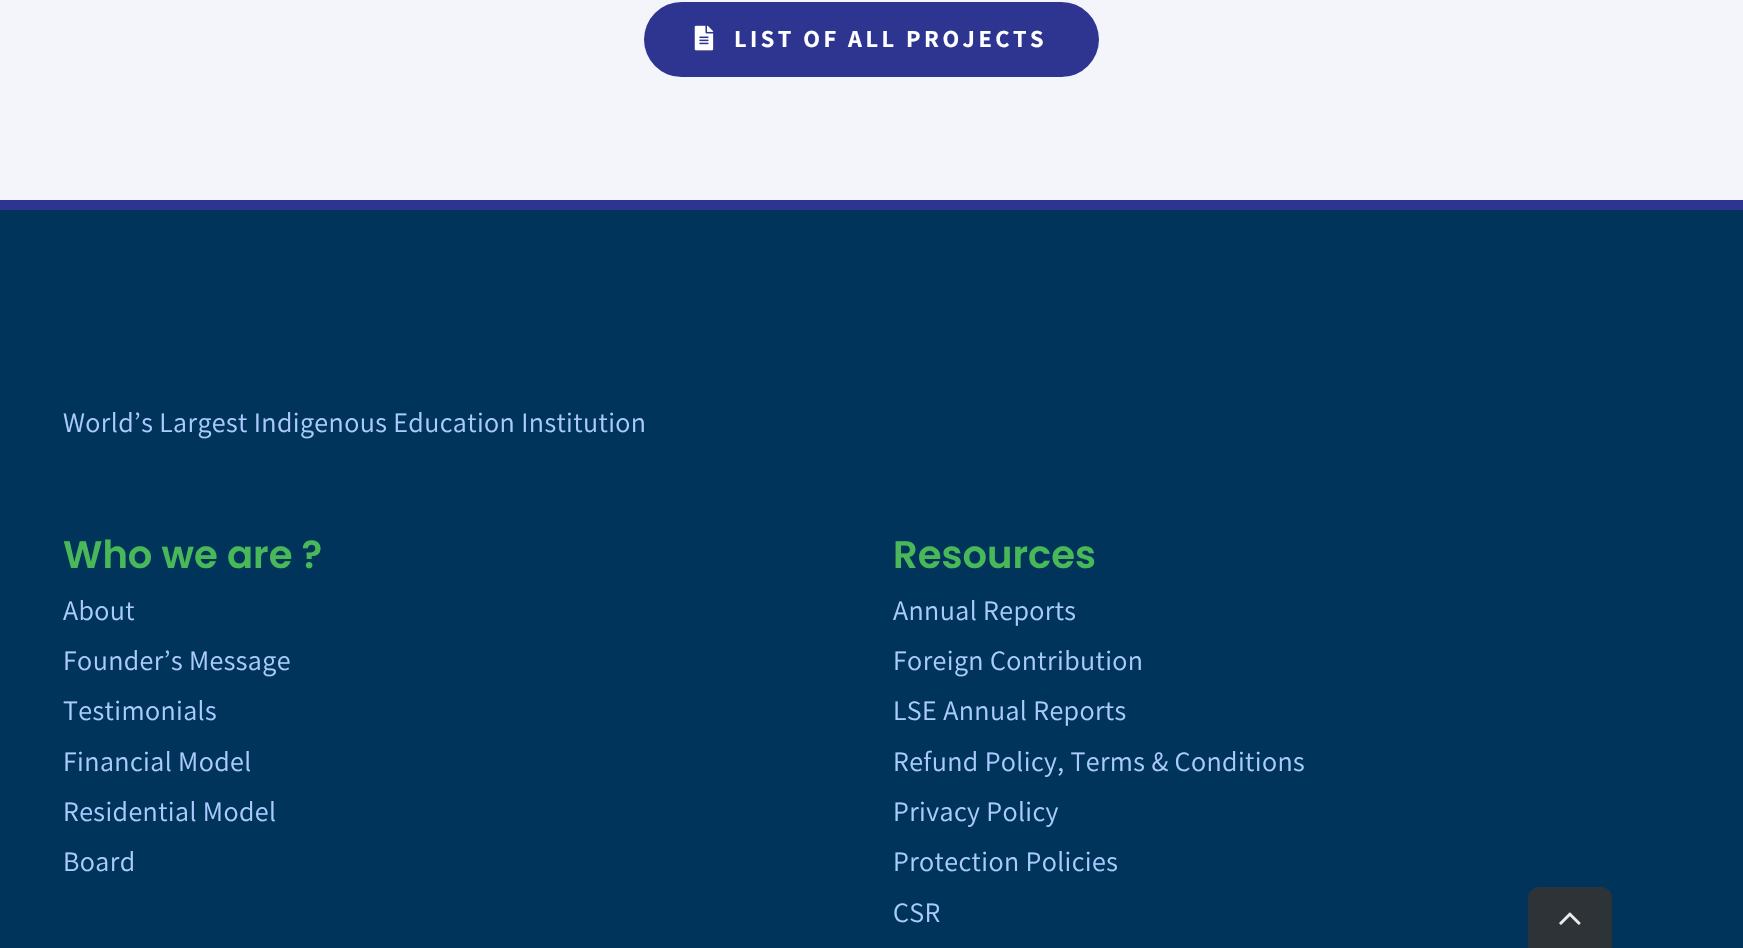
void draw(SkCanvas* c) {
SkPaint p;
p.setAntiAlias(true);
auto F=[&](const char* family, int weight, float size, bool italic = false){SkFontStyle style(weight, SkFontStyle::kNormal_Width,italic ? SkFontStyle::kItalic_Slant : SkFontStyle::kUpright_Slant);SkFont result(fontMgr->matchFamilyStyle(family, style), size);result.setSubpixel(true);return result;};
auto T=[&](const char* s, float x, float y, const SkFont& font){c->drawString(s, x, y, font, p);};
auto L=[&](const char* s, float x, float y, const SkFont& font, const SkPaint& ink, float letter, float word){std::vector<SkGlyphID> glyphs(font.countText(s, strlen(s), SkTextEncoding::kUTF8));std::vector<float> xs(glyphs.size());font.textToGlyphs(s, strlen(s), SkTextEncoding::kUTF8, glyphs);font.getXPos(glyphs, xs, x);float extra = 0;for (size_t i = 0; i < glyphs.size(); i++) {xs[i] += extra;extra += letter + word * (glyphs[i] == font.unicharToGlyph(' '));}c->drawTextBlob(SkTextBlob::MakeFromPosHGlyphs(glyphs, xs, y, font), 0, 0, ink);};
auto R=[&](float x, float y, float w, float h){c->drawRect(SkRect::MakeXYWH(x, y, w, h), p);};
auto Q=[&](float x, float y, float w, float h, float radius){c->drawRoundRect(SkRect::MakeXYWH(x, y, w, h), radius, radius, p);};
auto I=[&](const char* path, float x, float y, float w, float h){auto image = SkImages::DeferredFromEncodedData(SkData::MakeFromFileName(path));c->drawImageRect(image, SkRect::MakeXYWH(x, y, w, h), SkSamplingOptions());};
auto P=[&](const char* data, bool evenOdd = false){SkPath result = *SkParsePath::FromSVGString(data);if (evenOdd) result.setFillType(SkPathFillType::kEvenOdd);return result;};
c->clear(0xfff4f5fb);
p.setColor(0xff2d3591);
Q(644,2,455,75,37.5);
I("1.png",694,25,20,26);
auto f1 = F("Assistant",700,24.5);
p.setColor(0xffffffff);
L("LIST OF ALL PROJECTS",734,47,f1,p,3.5,0);
p.setColor(0xff00345b);
R(0,210,1743,738);
p.setColor(0xff2d3591);
R(0,200,1743,10);
auto f2 = F("Assistant",400,28);
p.setColor(0xffabcbff);
L("World’s Largest Indigenous Education Institution",63,432,f2,p,.4,0);
auto f3 = F("Poppins",600,38.5);
p.setColor(0xff48b859);
T("Who we are ?",63,568,f3);
p.setColor(0xffabcbff);
L("About",63,620,f2,p,.4,0);
L("Founder’s Message",63,670,f2,p,.4,0);
L("Testimonials",63,720,f2,p,.4,0);
L("Financial Model",63,771,f2,p,.4,0);
L("Residential Model",63,821,f2,p,.4,0);
L("Board",63,871,f2,p,.4,0);
p.setColor(0xff48b859);
T("Resources",893,568,f3);
p.setColor(0xffabcbff);
L("Annual Reports",893,620,f2,p,.4,0);
L("Foreign Contribution",893,670,f2,p,.4,0);
L("LSE Annual Reports",893,720,f2,p,.4,0);
L("Refund Policy, Terms & Conditions",893,771,f2,p,.4,0);
L("Privacy Policy",893,821,f2,p,.4,0);
L("Protection Policies",893,871,f2,p,.4,0);
L("CSR",893,922,f2,p,.4,0);
p.setColor(0xff2e3337);
c->drawPath(P("M1539 887h62c6 0 11 5 11 11v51h-84v-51c0-6 5-11 11-11z"),p);
I("2.png",1559,912,22,13);
}
